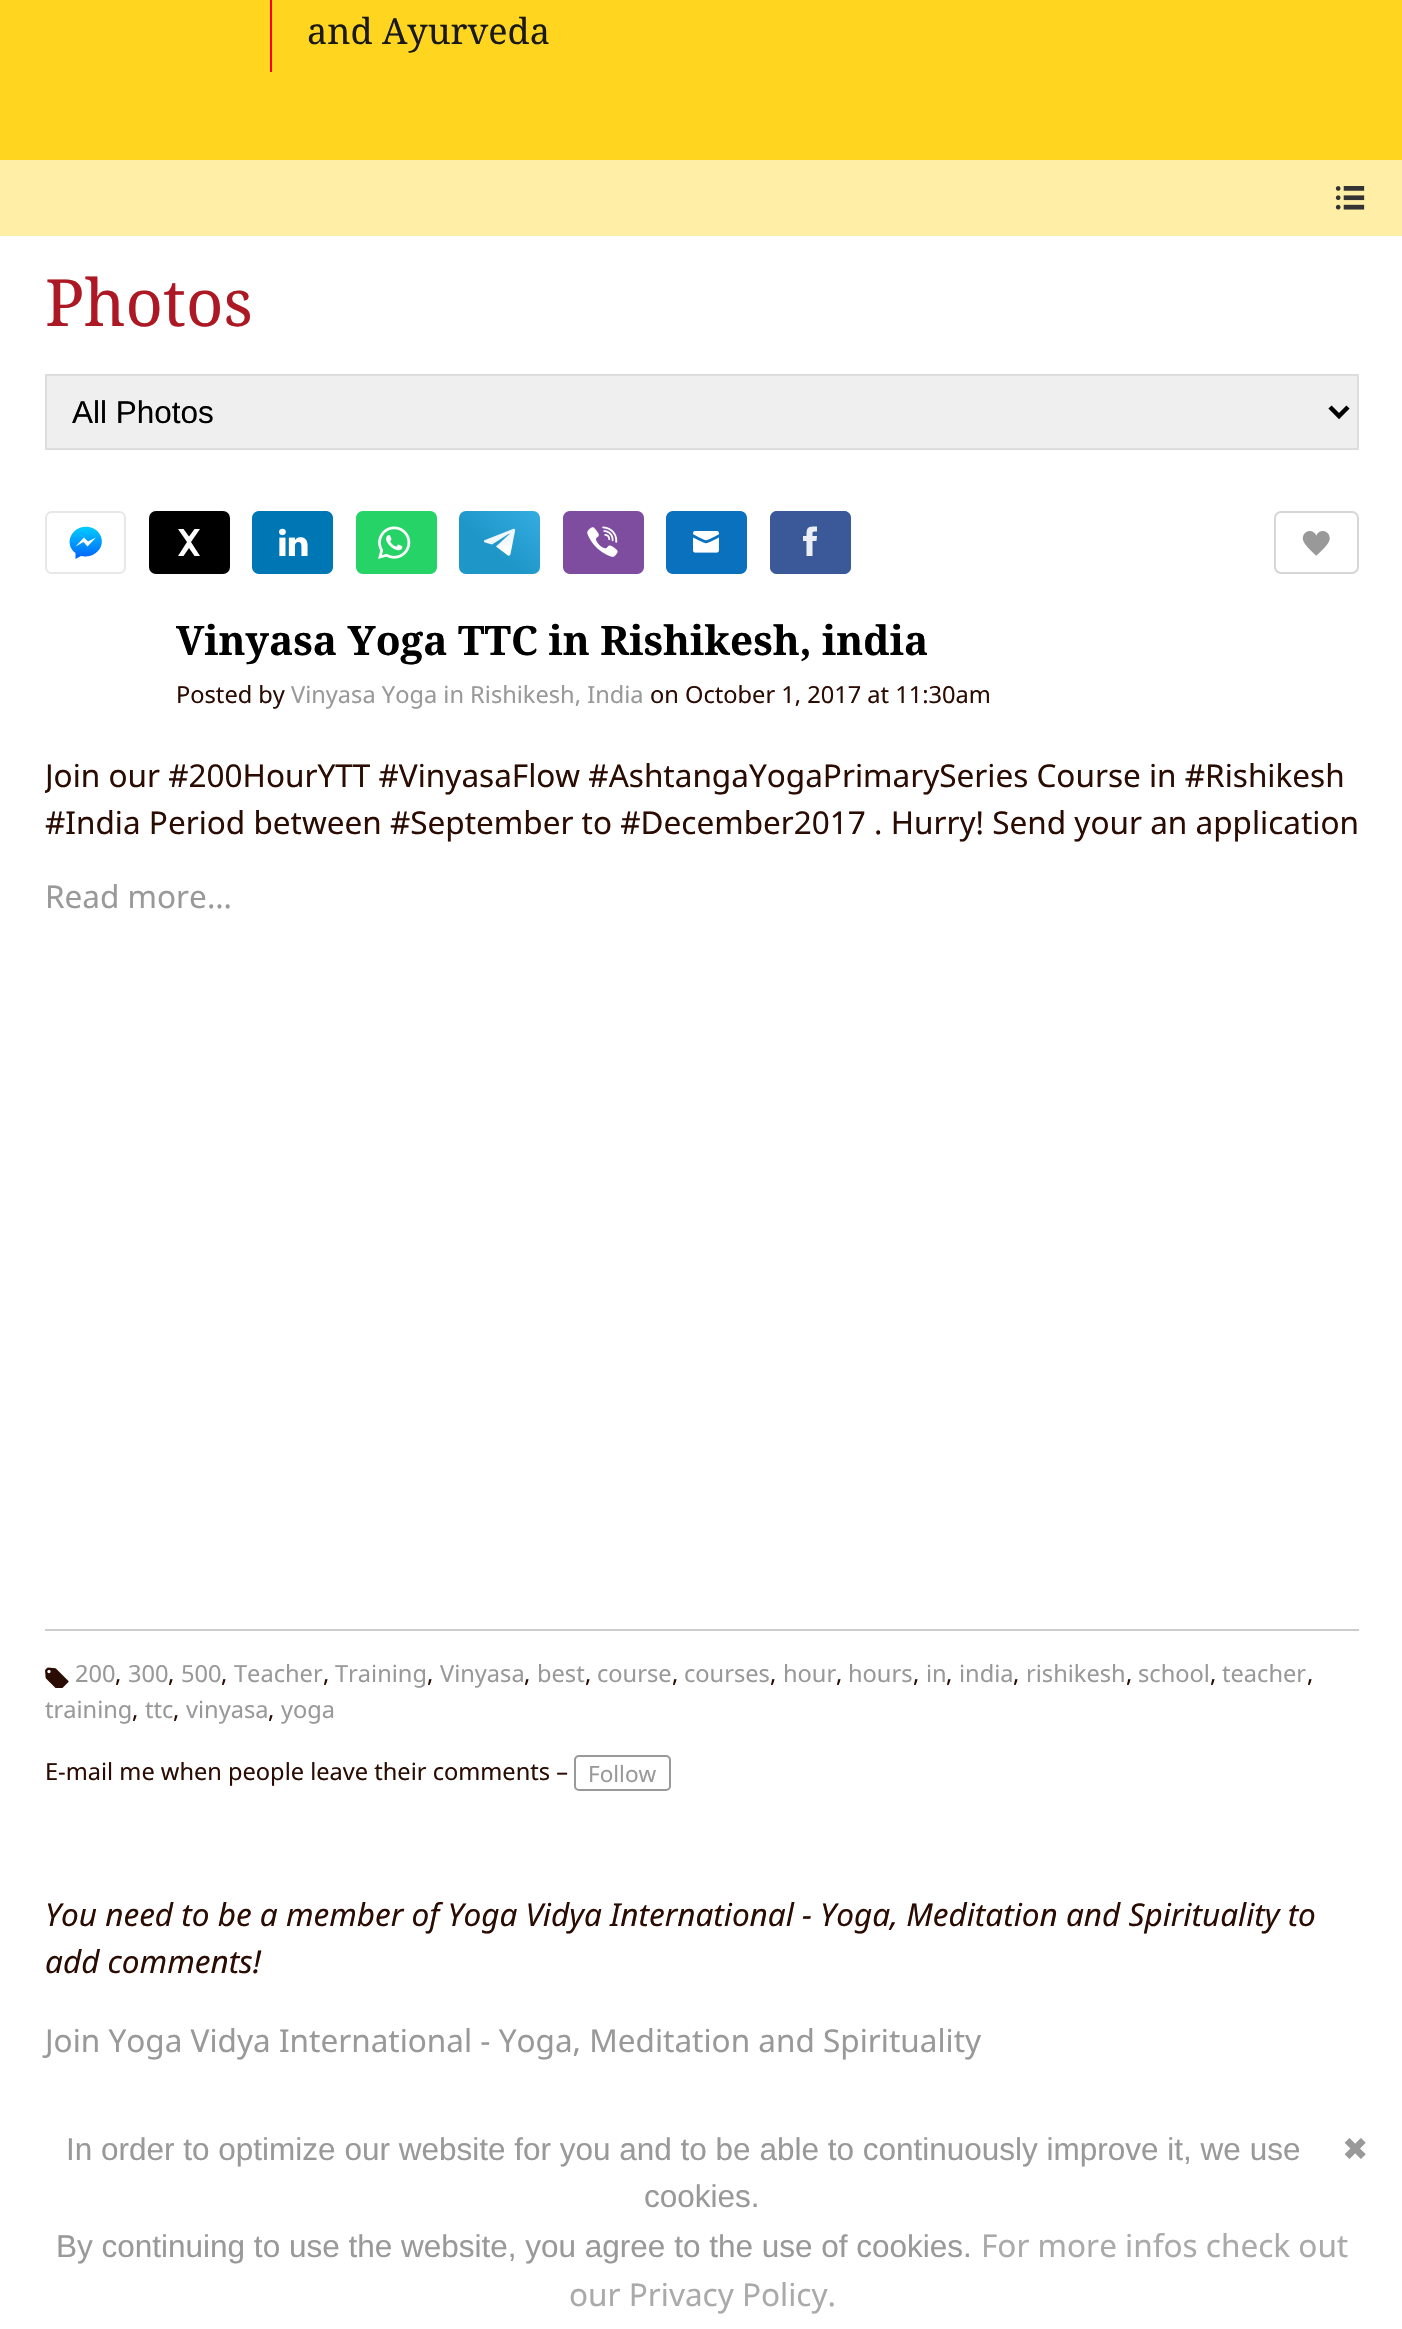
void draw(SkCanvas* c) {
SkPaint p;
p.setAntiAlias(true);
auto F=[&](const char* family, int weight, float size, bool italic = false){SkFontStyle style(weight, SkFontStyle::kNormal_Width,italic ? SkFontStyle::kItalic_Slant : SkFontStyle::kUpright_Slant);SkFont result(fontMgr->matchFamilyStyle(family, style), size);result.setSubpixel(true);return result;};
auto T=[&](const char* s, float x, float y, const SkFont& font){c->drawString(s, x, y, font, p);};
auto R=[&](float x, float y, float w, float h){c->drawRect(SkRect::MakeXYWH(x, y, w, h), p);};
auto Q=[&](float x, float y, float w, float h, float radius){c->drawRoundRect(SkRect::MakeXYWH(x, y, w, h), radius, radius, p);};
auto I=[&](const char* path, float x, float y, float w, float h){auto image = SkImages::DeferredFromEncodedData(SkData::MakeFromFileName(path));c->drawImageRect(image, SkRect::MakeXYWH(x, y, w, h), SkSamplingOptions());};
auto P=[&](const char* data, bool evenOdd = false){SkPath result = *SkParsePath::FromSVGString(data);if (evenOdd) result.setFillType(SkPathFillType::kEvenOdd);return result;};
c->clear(0xffffd520);
p.setColor(0xffff0000);
R(270,0,2,72);
auto f1 = F("Noto Serif",400,36);
p.setColor(0xff1a1a1a);
T("and Ayurveda",307,44,f1);
p.setColor(0xffffeea6);
R(0,160,1402,76);
I("1.png",1335,186,30,24);
p.setColor(0xffffffff);
R(0,236,1402,2093);
auto f2 = F("Noto Serif",400,65);
p.setColor(0xffac1924);
T("Photos",45,326,f2);
p.setColor(0xffefefef);
c->drawRect(SkRect::MakeXYWH(46,375,1312,74),p);
p.setStroke(true);
p.setStrokeWidth(2);
p.setColor(0xffdddddd);
c->drawRect(SkRect::MakeXYWH(46,375,1312,74),p);
p.setStrokeWidth(4.5);
p.setColor(0xff000000);
c->drawPath(P("M1330 407l9 9l9-9"),p);
auto f3 = F("Liberation Sans",400,31.5);
p.setStroke(false);
T("All Photos",72,423,f3);
p.setColor(0xffe7e7e7);
c->drawPath(P("M52 511c-4 0-7 3-7 7v49c0 4 3 7 7 7h67c4 0 7-3 7-7v-49c0-4-3-7-7-7zm-1 2c-2 0-4 2-4 4v51c0 2 2 4 4 4h69c2 0 4-2 4-4v-51c0-2-2-4-4-4z",true),p);
{
const SkColor colors[] = {0xff00c6ff,0xff0068ff};
const float stops[] = {0,1};
const SkPoint ends[] = {{86,529}, {86,557}};
p.setShader(SkGradientShader::MakeLinear(ends, colors, stops, 2, SkTileMode::kClamp));
p.setAlpha(255);
}
c->drawPath(P("M75.5 553v6l5.5-3c8.5 2 18.5-2.5 20.5-11.5c1-4 0-8-2.5-11.5c-2.5-3-6-5.5-10-6c-16-3-26.5 16-13.5 26z"),p);
p.setShader(nullptr);
p.setColor(0xffffffff);
c->drawPath(P("M84 537.5l-8.5 9l8-4.5l4 4.5l8.5-9l-8 4z"),p);
p.setColor(0xff000000);
Q(149,511,81,63,7);
p.setColor(0xffffffff);
c->drawPath(P("M178 529l9 13l-9 14h5.5l5.5-8l5.5 8h5.5l-9-14l9-13h-5.5l-5.5 7.5l-5.5-7.5z",true),p);
I("2.png",252,511,81,63);
I("3.png",356,511,81,63);
{
const SkColor colors[] = {0xff37aee2,0xff1e96c8};
const float stops[] = {0,1};
const SkPoint ends[] = {{548,512}, {506,562}};
p.setShader(SkGradientShader::MakeLinear(ends, colors, stops, 2, SkTileMode::kClamp));
p.setAlpha(255);
}
Q(459,511,81,63,7);
{
const SkColor colors[] = {0xffeff7fc,0xffffffff};
const float stops[] = {0,1};
const SkPoint ends[] = {{503,541}, {506,549}};
p.setShader(SkGradientShader::MakeLinear(ends, colors, stops, 2, SkTileMode::kClamp));
p.setAlpha(255);
}
c->drawPath(P("M496 546.5l12 9c1 .5 2 0 2.5-1.5l4.5-23c.5-2-.5-2.5-2-2l-28 11c-1.5 .5-1.5 2 0 2.5l7 2l16.5-10.5c1-.5 1.5-.5 1 0"),p);
I("4.png",563,511,81,63);
I("5.png",666,511,81,63);
p.setShader(nullptr);
p.setColor(0xff3b5998);
Q(770,511,81,63,7);
p.setColor(0xe63b5998);
Q(770,511,81,63,7);
p.setColor(0xffebeef5);
c->drawPath(P("M812.5 556v-15h4l.5-5h-4.5c0-4.5-.5-4.5 4.5-4.5v-5c-9 0-10.5 0-10.5 9.5h-3.5v5h3.5v15z"),p);
p.setStroke(true);
p.setStrokeWidth(2);
p.setColor(0xffd6d6d6);
c->drawRoundRect(SkRect::MakeXYWH(1275,512,83,61),6,6,p);
I("6.png",1302,531,28,25);
c->save();
c->clipRect(SkRect::MakeXYWH(176,612,1183,113));
auto f4 = F("Noto Serif",700,40.5);
p.setStroke(false);
p.setColor(0xff000000);
T("Vinyasa Yoga TTC in Rishikesh, india",176,655,f4);
c->restore();
auto f5 = F("Noto Sans",400,23.6);
p.setColor(0xff2b0c03);
T("Posted by",176,703,f5);
p.setColor(0xff999999);
T("Vinyasa Yoga in Rishikesh, India",291,703,f5);
p.setColor(0xff2b0c03);
T("on October 1, 2017 at 11:30am",650,703,f5);
c->save();
c->clipRect(SkRect::MakeXYWH(45,752,1314,94));
auto f6 = F("Noto Sans",400,31.5);
T("Join our #200HourYTT #VinyasaFlow #AshtangaYogaPrimarySeries Course in #Rishikesh",45,787,f6);
c->restore();
T("#India Period between #September to #December2017 . Hurry! Send your an application",45,834,f6);
p.setColor(0xff999999);
T("Read more…",45,908,f6);
p.setColor(0xffcccccc);
R(45,1629,1314,2);
I("7.png",45,1667,24,21);
p.setColor(0xff999999);
T("200",75,1682,f5);
p.setColor(0xff2b0c03);
T(",",115,1682,f5);
p.setColor(0xff999999);
T("300",128,1682,f5);
p.setColor(0xff2b0c03);
T(",",168,1682,f5);
p.setColor(0xff999999);
T("500",181,1682,f5);
p.setColor(0xff2b0c03);
T(",",221,1682,f5);
p.setColor(0xff999999);
T("Teacher",234,1682,f5);
p.setColor(0xff2b0c03);
T(",",323,1682,f5);
p.setColor(0xff999999);
T("Training",335,1682,f5);
p.setColor(0xff2b0c03);
T(",",427,1682,f5);
p.setColor(0xff999999);
T("Vinyasa",440,1682,f5);
p.setColor(0xff2b0c03);
T(",",524,1682,f5);
p.setColor(0xff999999);
T("best",537,1682,f5);
p.setColor(0xff2b0c03);
T(",",585,1682,f5);
p.setColor(0xff999999);
T("course",597,1682,f5);
p.setColor(0xff2b0c03);
T(",",672,1682,f5);
p.setColor(0xff999999);
T("courses",684,1682,f5);
p.setColor(0xff2b0c03);
T(",",770,1682,f5);
p.setColor(0xff999999);
T("hour",783,1682,f5);
p.setColor(0xff2b0c03);
T(",",836,1682,f5);
p.setColor(0xff999999);
T("hours",848,1682,f5);
p.setColor(0xff2b0c03);
T(",",913,1682,f5);
p.setColor(0xff999999);
T("in",926,1682,f5);
p.setColor(0xff2b0c03);
T(",",946,1682,f5);
p.setColor(0xff999999);
T("india",959,1682,f5);
p.setColor(0xff2b0c03);
T(",",1013,1682,f5);
p.setColor(0xff999999);
T("rishikesh",1026,1682,f5);
p.setColor(0xff2b0c03);
T(",",1126,1682,f5);
p.setColor(0xff999999);
T("school",1138,1682,f5);
p.setColor(0xff2b0c03);
T(",",1210,1682,f5);
p.setColor(0xff999999);
T("teacher",1222,1682,f5);
p.setColor(0xff2b0c03);
T(",",1307,1682,f5);
p.setColor(0xff999999);
T("training",45,1718,f5);
p.setColor(0xff2b0c03);
T(",",132,1718,f5);
p.setColor(0xff999999);
T("ttc",145,1718,f5);
p.setColor(0xff2b0c03);
T(",",173,1718,f5);
p.setColor(0xff999999);
T("vinyasa",186,1718,f5);
p.setColor(0xff2b0c03);
T(",",268,1718,f5);
p.setColor(0xff999999);
T("yoga",281,1718,f5);
p.setColor(0xff2b0c03);
T("E-mail me when people leave their comments –",45,1780,f5);
p.setStroke(true);
p.setColor(0xff999999);
c->drawRoundRect(SkRect::MakeXYWH(575,1756,95,34),4,4,p);
auto f7 = F("Noto Sans",400,22.5);
p.setStroke(false);
T("Follow",588,1782,f7);
auto f8 = F("Noto Sans",400,31.5,true);
p.setColor(0xff2b0c03);
T("You need to be a member of Yoga Vidya International - Yoga, Meditation and Spirituality to",45,1926,f8);
T("add comments!",45,1973,f8);
p.setColor(0xff999999);
T("Join Yoga Vidya International - Yoga, Meditation and Spirituality",45,2052,f6);
T("In order to optimize our website for you and to be able to continuously improve it, we use",66,2160,f3);
auto f9 = F("DejaVu Sans",400,31.5);
T("✖",1342,2160,f9);
T("cookies.",644,2207,f3);
T("By continuing to use the website, you agree to the use of cookies.",56,2257,f3);
p.setColor(0xffaaaaaa);
T("For more infos check out",981,2257,f6);
T("our Privacy Policy.",569,2306,f6);
}
